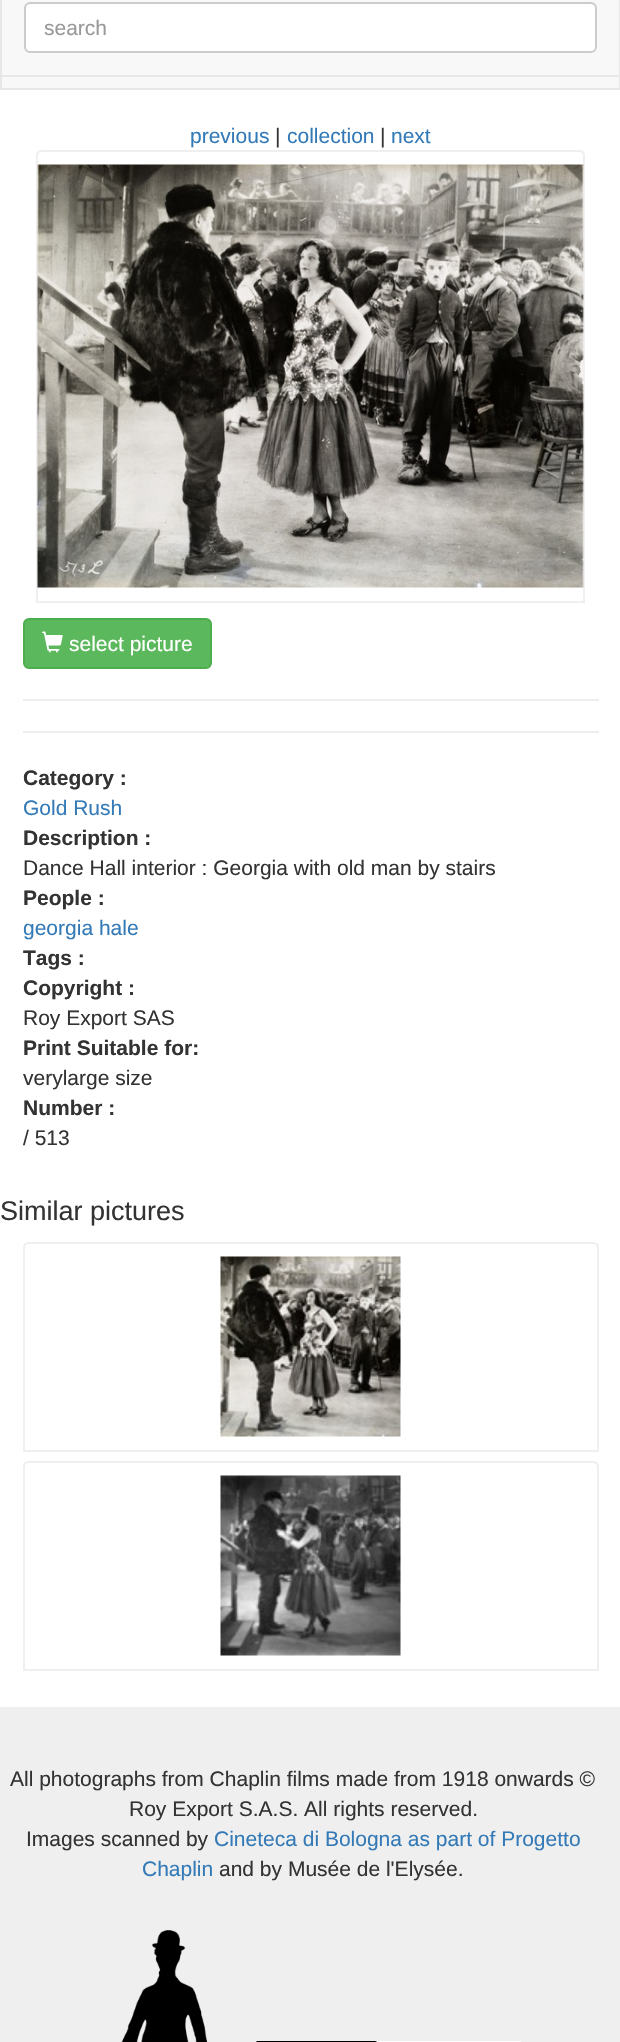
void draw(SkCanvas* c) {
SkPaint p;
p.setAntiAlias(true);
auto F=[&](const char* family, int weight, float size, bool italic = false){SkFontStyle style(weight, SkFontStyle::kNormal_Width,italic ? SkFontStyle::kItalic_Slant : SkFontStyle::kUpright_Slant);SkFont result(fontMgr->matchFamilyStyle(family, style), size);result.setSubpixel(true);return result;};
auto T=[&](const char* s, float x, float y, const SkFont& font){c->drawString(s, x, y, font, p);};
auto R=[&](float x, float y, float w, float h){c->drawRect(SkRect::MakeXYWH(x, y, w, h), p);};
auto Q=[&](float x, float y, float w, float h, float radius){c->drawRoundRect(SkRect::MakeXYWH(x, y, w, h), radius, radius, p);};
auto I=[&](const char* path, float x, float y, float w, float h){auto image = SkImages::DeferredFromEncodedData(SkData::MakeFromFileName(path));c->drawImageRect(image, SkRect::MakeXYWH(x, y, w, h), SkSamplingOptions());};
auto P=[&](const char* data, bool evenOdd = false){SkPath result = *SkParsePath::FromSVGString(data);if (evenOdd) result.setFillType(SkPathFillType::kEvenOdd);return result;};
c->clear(0xffffffff);
p.setColor(0xfff8f8f8);
c->drawRect(SkRect::MakeXYWH(1,-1,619,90),p);
p.setStroke(true);
p.setStrokeWidth(2);
p.setColor(0xffe7e7e7);
c->drawRect(SkRect::MakeXYWH(1,-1,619,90),p);
p.setStroke(false);
R(2,75,618,2);
p.setColor(0xffffffff);
Q(24,2,573,51,6);
p.setColor(0xffececec);
c->drawPath(P("M30 4h561c2 0 5 3 5 5c0-3-2-6-5-6h-560c-3 0-5 3-5 6c0-2 2-5 4-5z"),p);
p.setStroke(true);
p.setColor(0xffcccccc);
c->drawRoundRect(SkRect::MakeXYWH(25,3,571,49),5,5,p);
auto f1 = F("Liberation Sans",400,21);
p.setStroke(false);
p.setColor(0xff999999);
T("search",44,35,f1);
p.setColor(0xff337ab7);
T("previous",190,143,f1);
p.setColor(0xff333333);
T("|",275,143,f1);
p.setColor(0xff337ab7);
T("collection",287,143,f1);
p.setColor(0xff333333);
T("|",380,143,f1);
p.setColor(0xff337ab7);
T("next",391,143,f1);
p.setStroke(true);
p.setColor(0xffefefef);
c->drawPath(P("M42 151h537c3 0 5 2 5 5v446h-547v-446c0-3 2-5 5-5z"),p);
I("1.png",37,164,547,424);
p.setStroke(false);
p.setColor(0xff5cb85c);
c->drawRoundRect(SkRect::MakeXYWH(24,619,187,49),5,5,p);
p.setStroke(true);
p.setColor(0xff4cae4c);
c->drawRoundRect(SkRect::MakeXYWH(24,619,187,49),5,5,p);
I("2.png",42,631,21,22);
p.setStroke(false);
p.setColor(0xffffffff);
T("select picture",69,651,f1);
p.setColor(0xffeeeeee);
R(23,699,576,2);
R(23,731,576,2);
auto f2 = F("Liberation Sans",700,21);
p.setColor(0xff333333);
T("Category :",23,785,f2);
p.setColor(0xff337ab7);
T("Gold Rush",23,815,f1);
p.setColor(0xff333333);
T("Description :",23,845,f2);
T("Dance Hall interior : Georgia with old man by stairs",23,875,f1);
T("People :",23,905,f2);
p.setColor(0xff337ab7);
T("georgia hale",23,935,f1);
p.setColor(0xff333333);
T("Tags :",23,965,f2);
T("Copyright :",23,995,f2);
T("Roy Export SAS",23,1025,f1);
T("Print Suitable for:",23,1055,f2);
T("verylarge size",23,1085,f1);
T("Number :",23,1115,f2);
T("/ 513",23,1145,f1);
auto f3 = F("Liberation Sans",400,27);
T("Similar pictures",0,1220,f3);
p.setStroke(true);
p.setColor(0xffefefef);
c->drawPath(P("M29 1243h564c3 0 5 2 5 5v203h-574v-203c0-3 2-5 5-5z"),p);
I("3.png",220,1256,181,181);
c->drawPath(P("M29 1462h564c3 0 5 2 5 5v203h-574v-203c0-3 2-5 5-5z"),p);
I("4.png",220,1475,181,181);
p.setStroke(false);
R(0,1707,620,335);
p.setColor(0xff333333);
T("All photographs from Chaplin films made from 1918 onwards ©",10,1786,f1);
T("Roy Export S.A.S. All rights reserved.",129,1816,f1);
T("Images scanned by",26,1846,f1);
p.setColor(0xff337ab7);
T("Cineteca di Bologna as part of Progetto",214,1846,f1);
T("Chaplin",142,1876,f1);
p.setColor(0xff333333);
T("and by Musée de l'Elysée.",219,1876,f1);
I("5.png",121,1930,87,112);
I("6.png",256,2041,265,1);
}
